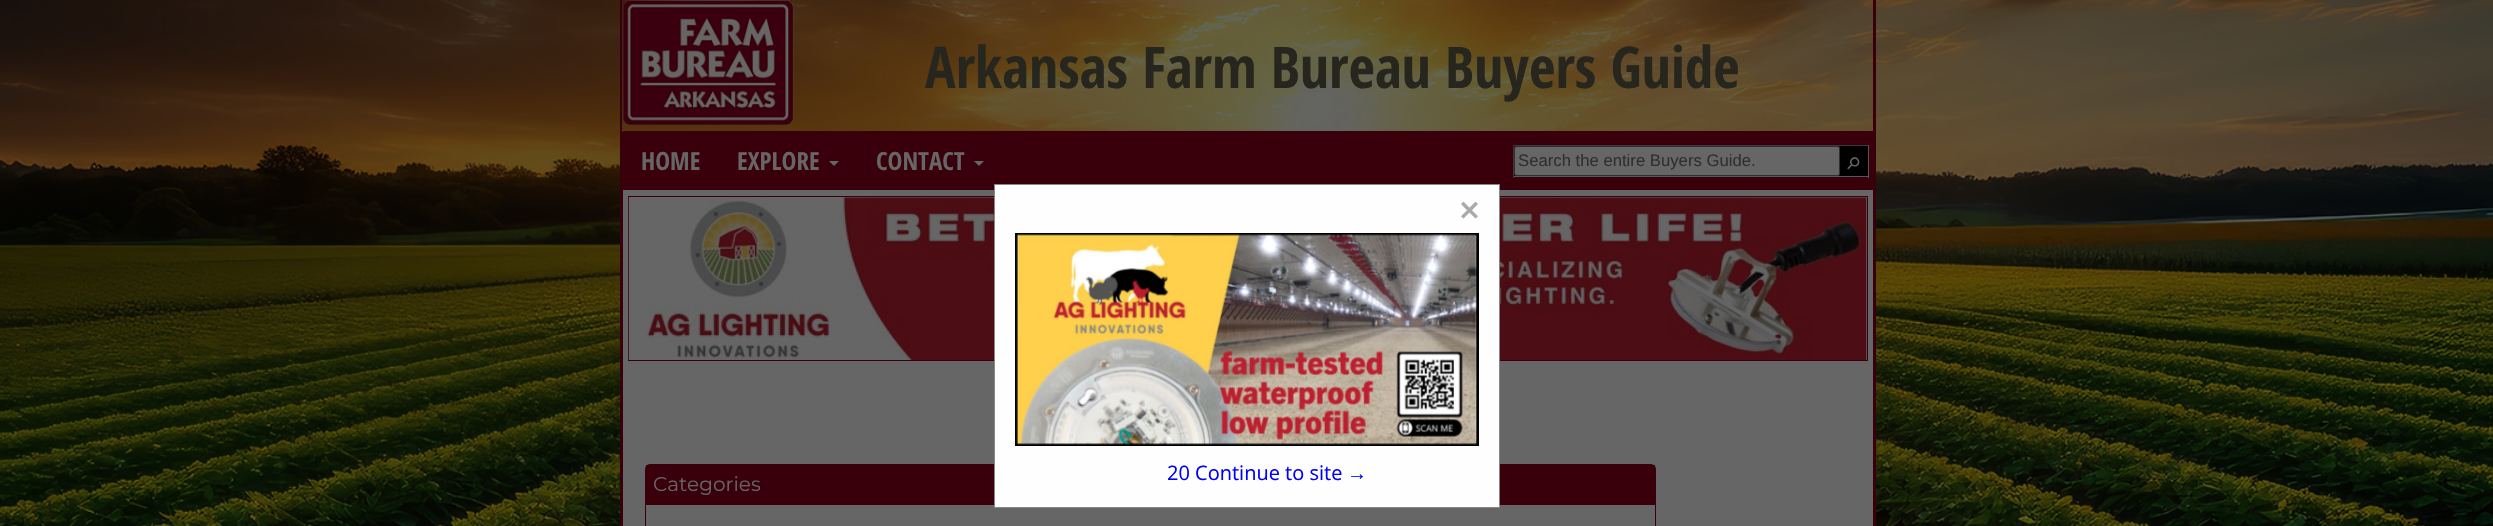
void draw(SkCanvas* c) {
SkPaint p;
p.setAntiAlias(true);
auto F=[&](const char* family, int weight, float size, bool italic = false){SkFontStyle style(weight, SkFontStyle::kNormal_Width,italic ? SkFontStyle::kItalic_Slant : SkFontStyle::kUpright_Slant);SkFont result(fontMgr->matchFamilyStyle(family, style), size);result.setSubpixel(true);return result;};
auto T=[&](const char* s, float x, float y, const SkFont& font){c->drawString(s, x, y, font, p);};
auto R=[&](float x, float y, float w, float h){c->drawRect(SkRect::MakeXYWH(x, y, w, h), p);};
auto I=[&](const char* path, float x, float y, float w, float h){auto image = SkImages::DeferredFromEncodedData(SkData::MakeFromFileName(path));c->drawImageRect(image, SkRect::MakeXYWH(x, y, w, h), SkSamplingOptions());};
auto P=[&](const char* data, bool evenOdd = false){SkPath result = *SkParsePath::FromSVGString(data);if (evenOdd) result.setFillType(SkPathFillType::kEvenOdd);return result;};
c->clear(0xffffffff);
I("1.png",0,0,2493,526);
p.setColor(0xff666666);
R(623,190,1250,336);
p.setColor(0xff39000b);
R(1873,0,3,526);
R(620,0,3,526);
I("2.png",622,0,1251,132);
I("3.png",622,0,172,125);
auto f1 = F("Open Sans Condensed",700,57.5);
p.setColor(0xff26261e);
T("Arkansas Farm Bureau Buyers Guide",925,88,f1);
p.setColor(0xff39000b);
R(623,131,1250,59);
auto f2 = F("Open Sans Condensed",700,25);
p.setColor(0xff666666);
T("HOME",641,170,f2);
T("EXPLORE",737,170,f2);
c->drawPath(P("M829 161h10l-5 5z"),p);
T("CONTACT",876,170,f2);
c->drawPath(P("M974 161h10l-5 5z"),p);
p.setColor(0xff393939);
R(1513,145,356,1);
p.setColor(0xff565656);
R(1868,145,1,33);
R(1513,176,356,1);
p.setColor(0xff393939);
R(1513,145,1,33);
p.setColor(0xff666666);
c->drawRoundRect(SkRect::MakeXYWH(1514.5,146.5,325,29),2,2,p);
p.setStroke(true);
p.setStrokeWidth(1);
p.setColor(0xff2f2f2f);
c->drawRoundRect(SkRect::MakeXYWH(1514.5,146.5,325,29),2,2,p);
auto f3 = F("Liberation Sans",400,16.7);
p.setStroke(false);
T("Search the entire Buyers Guide.",1518,166,f3);
p.setColor(0xff000000);
R(1840,146,28,30);
auto f4 = F("DejaVu Sans",400,16.7);
p.setColor(0xff666666);
c->save();
c->rotate(45,1845,163);
T("⚲",1845,163,f4);
c->restore();
p.setStroke(true);
p.setColor(0xff39000b);
c->drawRect(SkRect::MakeXYWH(628.5,196.5,1239,164),p);
I("4.png",628,197,1239,163);
c->drawRoundRect(SkRect::MakeXYWH(645.5,464.5,1010,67),4.5,4.5,p);
p.setStroke(false);
R(646,465,1009,40);
p.setColor(0xfffefefe);
c->drawRect(SkRect::MakeXYWH(994.5,184.5,505,323),p);
p.setStroke(true);
p.setColor(0xff888888);
c->drawRect(SkRect::MakeXYWH(994.5,184.5,505,323),p);
auto f5 = F("Open Sans",700,35);
p.setStroke(false);
p.setColor(0xffaaaaaa);
T("×",1459,223,f5);
p.setStroke(true);
p.setStrokeWidth(3);
p.setColor(0xff000000);
c->drawRect(SkRect::MakeXYWH(1016.5,234.5,461,210),p);
I("5.png",1016,234,461,211);
auto f6 = F("Open Sans",400,20);
p.setStroke(false);
p.setColor(0xff0000ff);
T("20 Continue to site",1167,480,f6);
auto f7 = F("Liberation Sans",400,20);
T("→",1347,480,f7);
auto f8 = F("Montserrat",400,20);
p.setColor(0xff666666);
T("Categories",653,491,f8);
}
